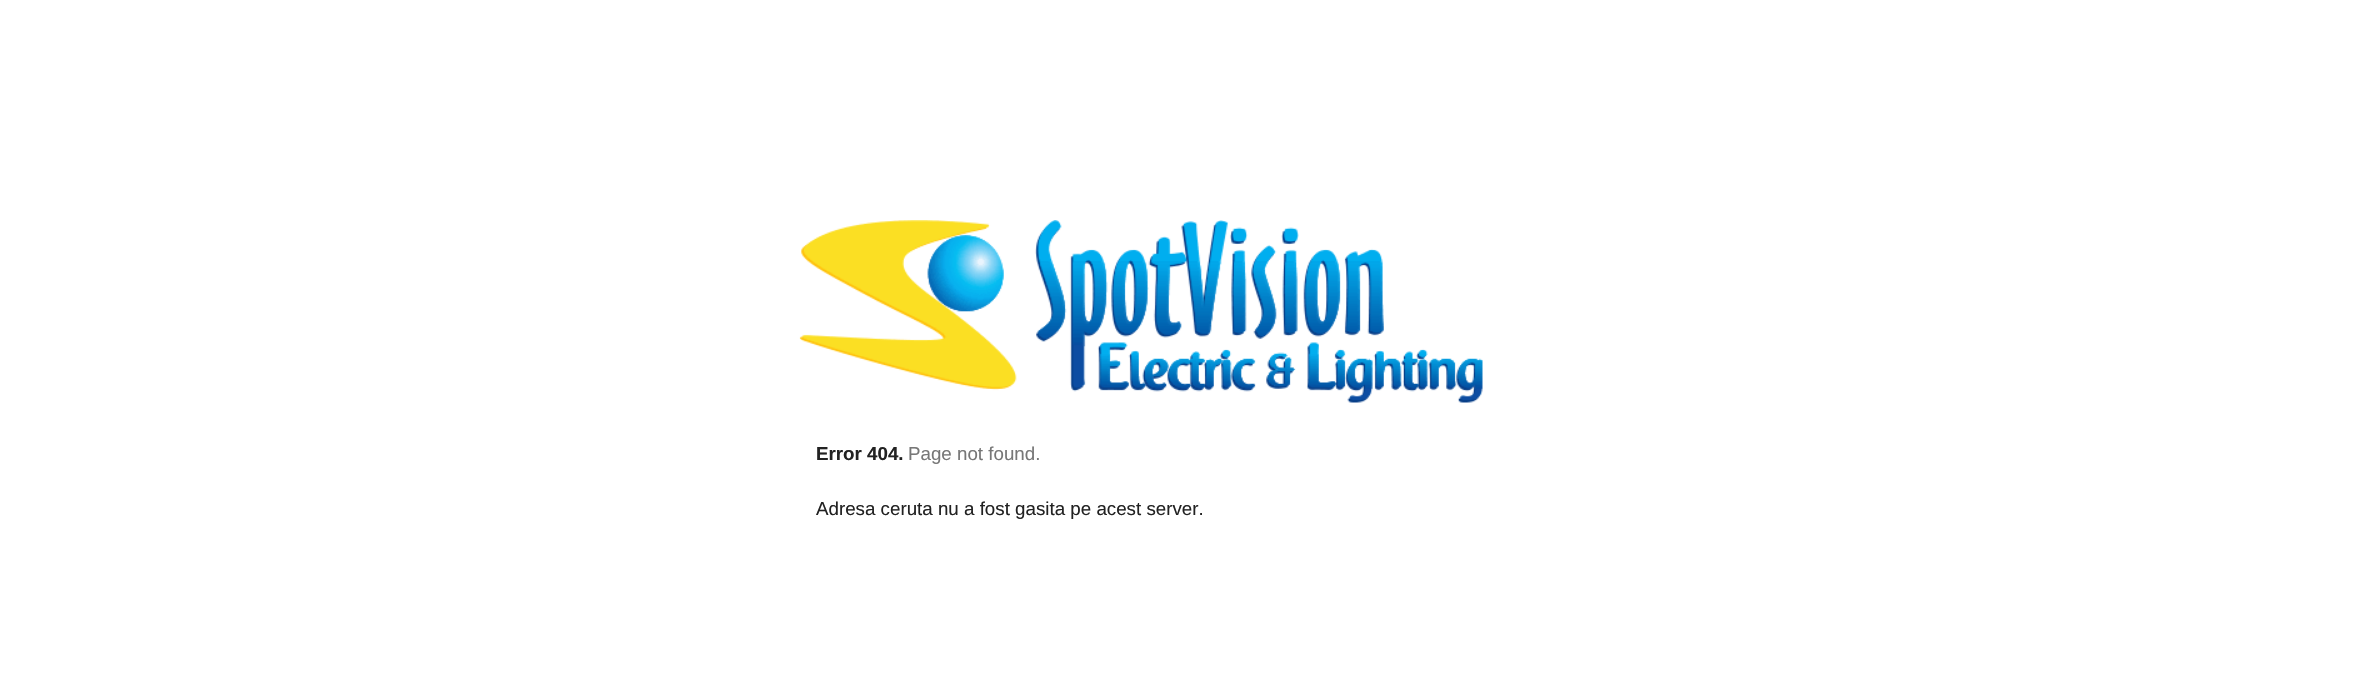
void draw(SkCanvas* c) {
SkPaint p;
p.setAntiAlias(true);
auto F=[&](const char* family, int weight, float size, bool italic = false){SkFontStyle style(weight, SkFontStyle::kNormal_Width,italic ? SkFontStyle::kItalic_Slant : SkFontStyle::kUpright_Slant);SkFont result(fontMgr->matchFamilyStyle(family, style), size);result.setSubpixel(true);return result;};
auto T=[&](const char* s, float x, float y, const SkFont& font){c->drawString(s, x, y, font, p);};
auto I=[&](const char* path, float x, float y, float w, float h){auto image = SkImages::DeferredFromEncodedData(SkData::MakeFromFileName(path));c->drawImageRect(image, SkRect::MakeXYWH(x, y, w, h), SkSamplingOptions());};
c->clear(0xffffffff);
I("1.png",799,220,684,183);
auto f1 = F("Liberation Sans",700,18.75);
p.setColor(0xff222222);
T("Error 404.",816,460,f1);
auto f2 = F("Liberation Sans",400,18.75);
p.setColor(0xff777777);
T("Page not found.",908,460,f2);
p.setColor(0xff222222);
T("Adresa ceruta nu a fost gasita pe acest server.",816,515,f2);
}
